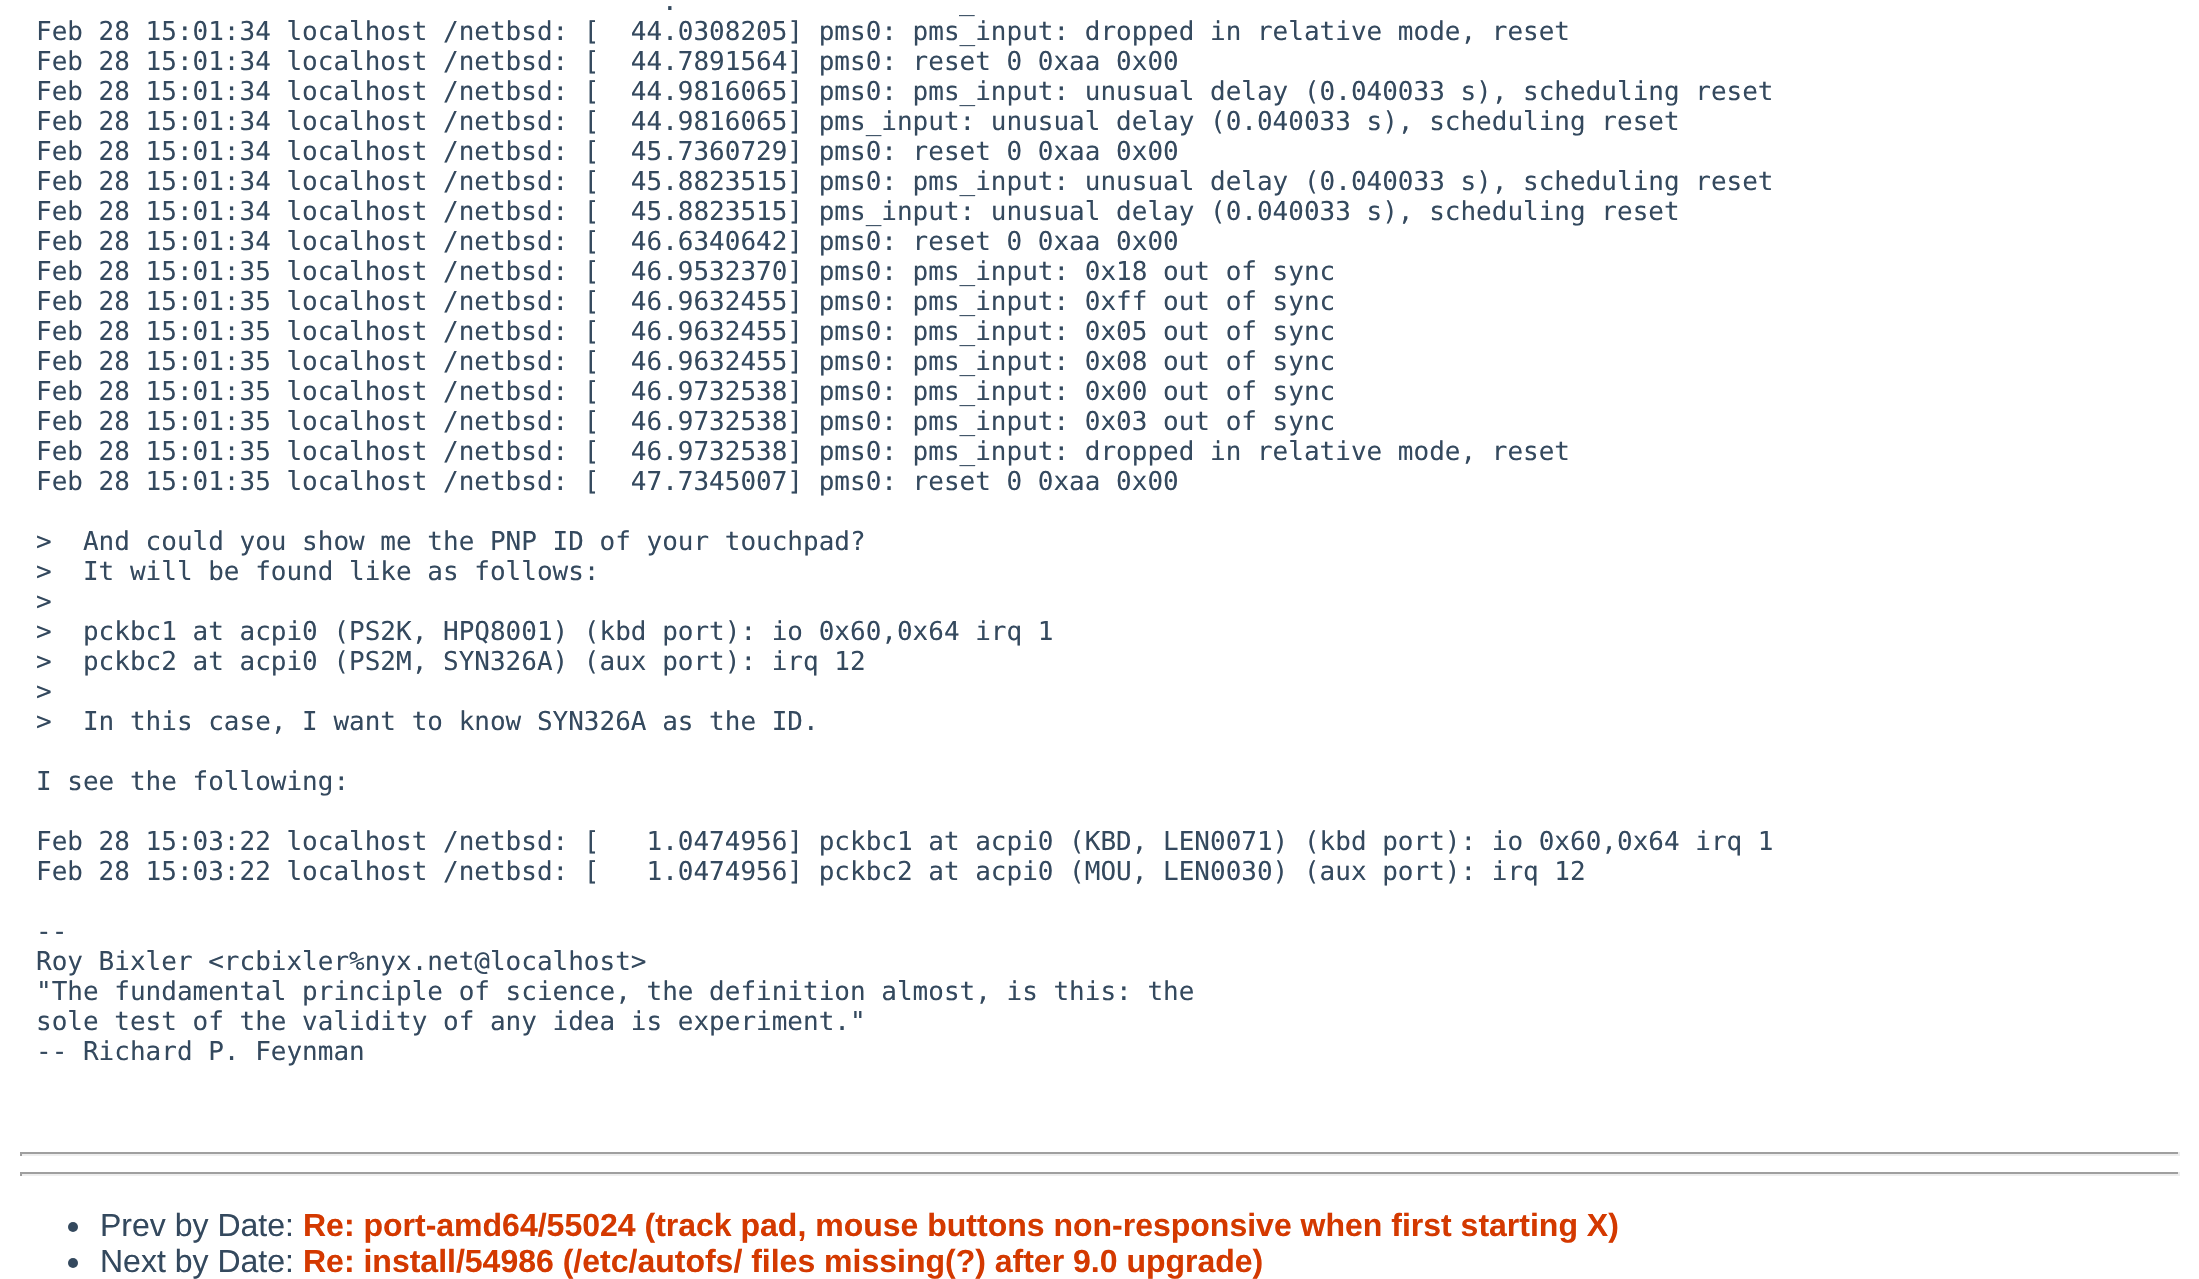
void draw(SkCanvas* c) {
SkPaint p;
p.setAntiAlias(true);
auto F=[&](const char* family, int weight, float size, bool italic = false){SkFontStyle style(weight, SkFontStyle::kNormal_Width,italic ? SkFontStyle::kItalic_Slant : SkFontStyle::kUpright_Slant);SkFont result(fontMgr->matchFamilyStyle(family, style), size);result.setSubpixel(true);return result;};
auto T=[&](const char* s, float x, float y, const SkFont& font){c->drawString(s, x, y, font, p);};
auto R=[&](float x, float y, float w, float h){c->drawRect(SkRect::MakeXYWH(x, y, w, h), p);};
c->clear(0xffffffff);
auto f1 = F("DejaVu Sans Mono",400,26);
p.setColor(0xff34495e);
T(".",662,10,f1);
T("_",959,10,f1);
T("Feb 28 15:01:34 localhost /netbsd: [  44.0308205] pms0: pms_input: dropped in relative mode, reset",36,40,f1);
T("Feb 28 15:01:34 localhost /netbsd: [  44.7891564] pms0: reset 0 0xaa 0x00",36,70,f1);
T("Feb 28 15:01:34 localhost /netbsd: [  44.9816065] pms0: pms_input: unusual delay (0.040033 s), scheduling reset",36,100,f1);
T("Feb 28 15:01:34 localhost /netbsd: [  44.9816065] pms_input: unusual delay (0.040033 s), scheduling reset",36,130,f1);
T("Feb 28 15:01:34 localhost /netbsd: [  45.7360729] pms0: reset 0 0xaa 0x00",36,160,f1);
T("Feb 28 15:01:34 localhost /netbsd: [  45.8823515] pms0: pms_input: unusual delay (0.040033 s), scheduling reset",36,190,f1);
T("Feb 28 15:01:34 localhost /netbsd: [  45.8823515] pms_input: unusual delay (0.040033 s), scheduling reset",36,220,f1);
T("Feb 28 15:01:34 localhost /netbsd: [  46.6340642] pms0: reset 0 0xaa 0x00",36,250,f1);
T("Feb 28 15:01:35 localhost /netbsd: [  46.9532370] pms0: pms_input: 0x18 out of sync",36,280,f1);
T("Feb 28 15:01:35 localhost /netbsd: [  46.9632455] pms0: pms_input: 0xff out of sync",36,310,f1);
T("Feb 28 15:01:35 localhost /netbsd: [  46.9632455] pms0: pms_input: 0x05 out of sync",36,340,f1);
T("Feb 28 15:01:35 localhost /netbsd: [  46.9632455] pms0: pms_input: 0x08 out of sync",36,370,f1);
T("Feb 28 15:01:35 localhost /netbsd: [  46.9732538] pms0: pms_input: 0x00 out of sync",36,400,f1);
T("Feb 28 15:01:35 localhost /netbsd: [  46.9732538] pms0: pms_input: 0x03 out of sync",36,430,f1);
T("Feb 28 15:01:35 localhost /netbsd: [  46.9732538] pms0: pms_input: dropped in relative mode, reset",36,460,f1);
T("Feb 28 15:01:35 localhost /netbsd: [  47.7345007] pms0: reset 0 0xaa 0x00",36,490,f1);
T(">  And could you show me the PNP ID of your touchpad?",36,550,f1);
T(">  It will be found like as follows:",36,580,f1);
T(">",36,610,f1);
T(">  pckbc1 at acpi0 (PS2K, HPQ8001) (kbd port): io 0x60,0x64 irq 1",36,640,f1);
T(">  pckbc2 at acpi0 (PS2M, SYN326A) (aux port): irq 12",36,670,f1);
T(">",36,700,f1);
T(">  In this case, I want to know SYN326A as the ID.",36,730,f1);
T("I see the following:",36,790,f1);
T("Feb 28 15:03:22 localhost /netbsd: [   1.0474956] pckbc1 at acpi0 (KBD, LEN0071) (kbd port): io 0x60,0x64 irq 1",36,850,f1);
T("Feb 28 15:03:22 localhost /netbsd: [   1.0474956] pckbc2 at acpi0 (MOU, LEN0030) (aux port): irq 12",36,880,f1);
T("--",36,940,f1);
T("Roy Bixler <rcbixler%nyx.net@localhost>",36,970,f1);
T("\"The fundamental principle of science, the definition almost, is this: the",36,1000,f1);
T("sole test of the validity of any idea is experiment.\"",36,1030,f1);
T("-- Richard P. Feynman",36,1060,f1);
p.setColor(0xff9f9f9f);
R(20,1152,2160,2);
p.setColor(0xffeeeeee);
R(2178,1152,2,4);
R(20,1154,2160,2);
p.setColor(0xff9f9f9f);
R(20,1152,2,4);
R(20,1172,2160,2);
p.setColor(0xffeeeeee);
R(2178,1172,2,4);
R(20,1174,2160,2);
p.setColor(0xff9f9f9f);
R(20,1172,2,4);
p.setColor(0xff34495e);
c->drawCircle(73,1227,5,p);
auto f2 = F("Liberation Sans",400,32);
T("Prev by Date:",100,1236,f2);
auto f3 = F("Liberation Sans",700,32);
p.setColor(0xffd43900);
T("Re: port-amd64/55024 (track pad, mouse buttons non-responsive when first starting X)",303,1236,f3);
p.setColor(0xff34495e);
c->drawCircle(73,1263,5,p);
T("Next by Date:",100,1272,f2);
p.setColor(0xffd43900);
T("Re: install/54986 (/etc/autofs/ files missing(?) after 9.0 upgrade)",303,1272,f3);
}
